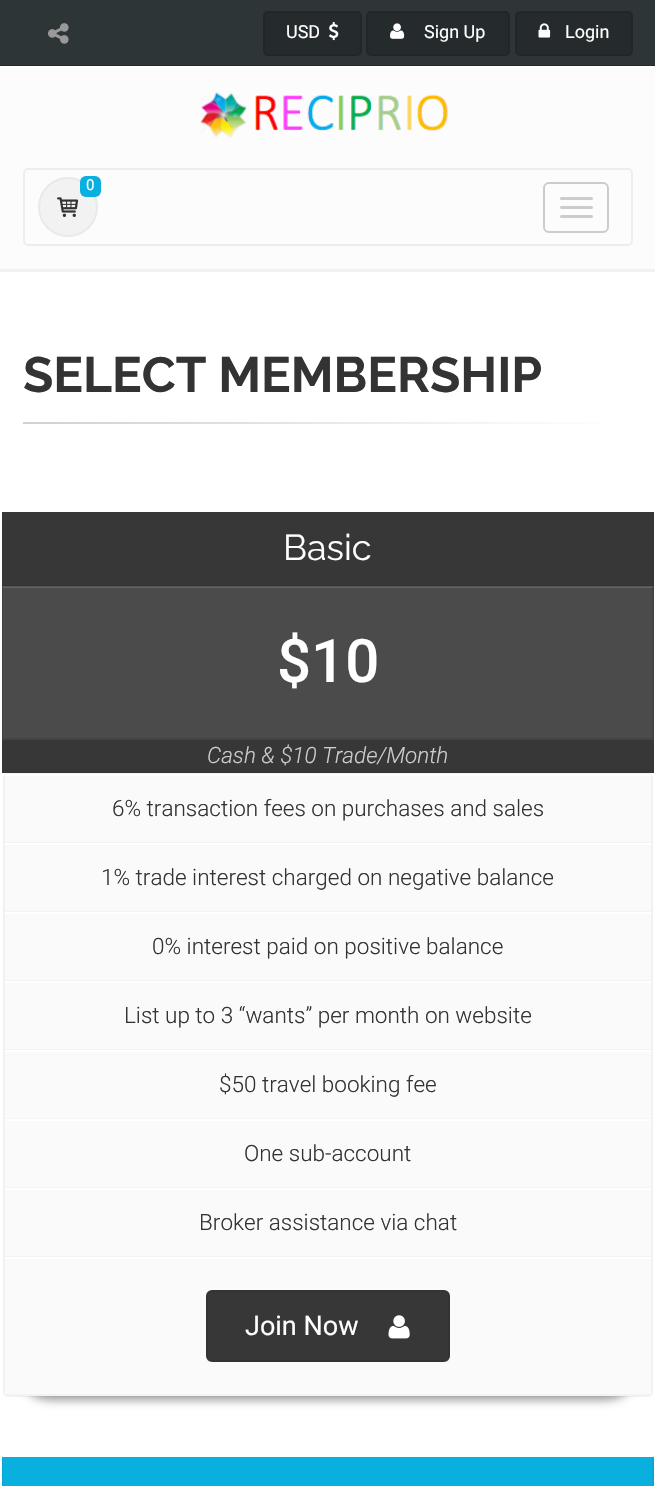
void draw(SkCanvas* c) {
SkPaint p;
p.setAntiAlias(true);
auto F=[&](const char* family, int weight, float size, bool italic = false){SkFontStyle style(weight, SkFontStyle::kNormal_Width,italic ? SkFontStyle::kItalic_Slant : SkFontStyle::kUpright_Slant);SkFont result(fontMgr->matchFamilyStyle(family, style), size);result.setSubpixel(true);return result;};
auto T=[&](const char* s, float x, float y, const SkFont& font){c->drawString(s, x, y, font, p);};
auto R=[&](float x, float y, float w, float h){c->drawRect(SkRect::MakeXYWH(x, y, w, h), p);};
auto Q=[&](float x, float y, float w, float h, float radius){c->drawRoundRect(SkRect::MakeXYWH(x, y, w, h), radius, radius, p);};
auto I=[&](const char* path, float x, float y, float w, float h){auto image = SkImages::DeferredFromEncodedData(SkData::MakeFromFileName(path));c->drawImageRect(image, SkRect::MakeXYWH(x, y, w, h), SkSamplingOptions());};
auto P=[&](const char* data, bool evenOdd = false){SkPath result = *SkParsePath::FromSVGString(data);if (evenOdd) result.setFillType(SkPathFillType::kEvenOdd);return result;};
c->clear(0xffffffff);
p.setColor(0xff2e3537);
R(0,0,655,65);
p.setColor(0xff252a2c);
R(0,65,655,1);
I("1.png",48,23,21,21);
Q(263,11,99,45,5);
p.setStroke(true);
p.setStrokeWidth(2);
p.setColor(0x1a000000);
c->drawRoundRect(SkRect::MakeXYWH(264,12,97,43),4,4,p);
auto f1 = F("Roboto",400,18);
p.setStroke(false);
p.setColor(0xffffffff);
T("USD",286,38,f1);
I("2.png",329,22,10,19);
p.setColor(0xff252a2c);
Q(366,11,144,45,5);
p.setStroke(true);
p.setColor(0x1a000000);
c->drawRoundRect(SkRect::MakeXYWH(367,12,142,43),4,4,p);
I("3.png",390,23,15,16);
p.setStroke(false);
p.setColor(0xffffffff);
T("Sign Up",424,38,f1);
p.setColor(0xff252a2c);
Q(515,11,118,45,5);
p.setStroke(true);
p.setColor(0x1a000000);
c->drawRoundRect(SkRect::MakeXYWH(516,12,116,43),4,4,p);
I("4.png",538,23,13,15);
p.setStroke(false);
p.setColor(0xffffffff);
T("Login",565,38,f1);
p.setColor(0xfffcfcfc);
R(0,68,655,201);
p.setColor(0xfff1f1f1);
R(0,269,655,3);
I("5.png",200,92,248,46);
p.setStroke(true);
p.setColor(0xffededed);
c->drawRoundRect(SkRect::MakeXYWH(24,169,608,76),4,4,p);
p.setColor(0xffcccccc);
c->drawRoundRect(SkRect::MakeXYWH(544,183,64,49),5,5,p);
p.setStroke(false);
Q(560,197,33,3,1.5);
Q(560,206,33,3,1.5);
Q(560,215,33,3,1.5);
p.setColor(0xfff2f2f2);
c->drawCircle(68,207,29,p);
p.setStroke(true);
p.setColor(0xffe9e9e9);
c->drawCircle(68,207,29,p);
p.setStroke(false);
p.setColor(0xff09afdf);
Q(80,176,21,21,6);
auto f2 = F("Roboto",400,15);
p.setColor(0xffffffff);
T("0",86,190,f2);
I("6.png",57,197,22,20);
auto f3 = F("Raleway",700,49.5);
p.setColor(0xff333333);
T("SELECT MEMBERSHIP",23,392,f3);
{
const SkColor colors[] = {0xffd1d1d1,0xffe0e0e0,0xfff2f2f2,0xffffffff};
const float stops[] = {0,.35,.7,1};
const SkPoint ends[] = {{23,422}, {633,422}};
p.setShader(SkGradientShader::MakeLinear(ends, colors, stops, 4, SkTileMode::kClamp));
p.setAlpha(255);
}
R(23,422,575,2);
p.setShader(nullptr);
p.setColor(0xff373737);
R(2,512,652,261);
p.setColor(0xff343434);
c->drawPath(P("M654 512v74l-2-1v-73z"),p);
c->drawPath(P("M654 586h-652l1-1h649z"),p);
c->drawPath(P("M2 586v-74h1v73z"),p);
auto f4 = F("Raleway",400,36);
p.setColor(0xffffffff);
T("Basic",283,560,f4);
p.setColor(0xff4b4b4b);
R(2,587,652,153);
p.setColor(0x26ffffff);
c->drawPath(P("M2 586h652l-2 2h-649z"),p);
p.setColor(0x1a000000);
c->drawPath(P("M654 586v154l-2-2v-150z"),p);
c->drawPath(P("M654 740h-652l1-2h649z"),p);
c->drawPath(P("M2 740v-154l1 2v150z"),p);
auto f5 = F("Roboto",500,60);
p.setColor(0xffffffff);
T("$10",277,682,f5);
auto f6 = F("Roboto",300,22.5,true);
p.setColor(0xffcdcdcd);
T("Cash & $10 Trade/Month",207,763,f6);
p.setColor(0xfffafafa);
c->drawRoundRect(SkRect::MakeXYWH(4,774,648,622),4,4,p);
p.setStroke(true);
p.setColor(0xfff1f1f1);
c->drawRoundRect(SkRect::MakeXYWH(4,774,648,622),4,4,p);
p.setStroke(false);
p.setColor(0xffffffff);
R(5,774,646,2);
p.setColor(0xfff3f3f3);
R(5,842,646,1);
auto f7 = F("Roboto",300,22.5);
p.setColor(0xff333333);
T("6% transaction fees on purchases and sales",112,816,f7);
p.setColor(0xffffffff);
R(5,843,646,2);
p.setColor(0xfff3f3f3);
R(5,911,646,1);
p.setColor(0xff333333);
T("1% trade interest charged on negative balance",101,885,f7);
p.setColor(0xffffffff);
R(5,912,646,2);
p.setColor(0xfff3f3f3);
R(5,980,646,1);
p.setColor(0xff333333);
T("0% interest paid on positive balance",152,954,f7);
p.setColor(0xffffffff);
R(5,981,646,2);
p.setColor(0xfff3f3f3);
R(5,1049,646,1);
p.setColor(0xff333333);
T("List up to 3 “wants” per month on website",124,1023,f7);
p.setColor(0xff999999);
p.setMaskFilter(SkMaskFilter::MakeBlur(kNormal_SkBlurStyle, 5));
c->drawRoundRect(SkRect::MakeXYWH(18,1089,620,311),32,32,p);
p.setMaskFilter(nullptr);
p.setColor(0xffffffff);
R(5,1050,646,2);
p.setColor(0xfffafafa);
R(5,1079,646,315);
p.setColor(0xfff3f3f3);
R(5,1118,646,1);
p.setColor(0xff333333);
T("$50 travel booking fee",219,1092,f7);
p.setColor(0xffffffff);
R(5,1119,646,2);
p.setColor(0xfff3f3f3);
R(5,1187,646,1);
p.setColor(0xff333333);
T("One sub-account",244,1161,f7);
p.setColor(0xffffffff);
R(5,1188,646,2);
p.setColor(0xfff3f3f3);
R(5,1256,646,1);
p.setColor(0xff333333);
T("Broker assistance via chat",199,1230,f7);
p.setColor(0xffffffff);
R(5,1257,646,2);
p.setColor(0xfff3f3f3);
R(5,1394,646,2);
p.setColor(0xff373737);
c->drawRoundRect(SkRect::MakeXYWH(207,1291,242,70),5,5,p);
p.setStroke(true);
p.setColor(0xff333333);
c->drawRoundRect(SkRect::MakeXYWH(207,1291,242,70),5,5,p);
auto f8 = F("Roboto",400,27);
p.setStroke(false);
p.setColor(0xffffffff);
T("Join Now",245,1335,f8);
I("7.png",388,1315,22,24);
p.setColor(0xff09afdf);
R(2,1457,652,29);
p.setColor(0x0d000000);
c->drawPath(P("M654 1456v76l-2-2v-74z"),p);
c->drawPath(P("M2 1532v-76h1v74z"),p);
}
